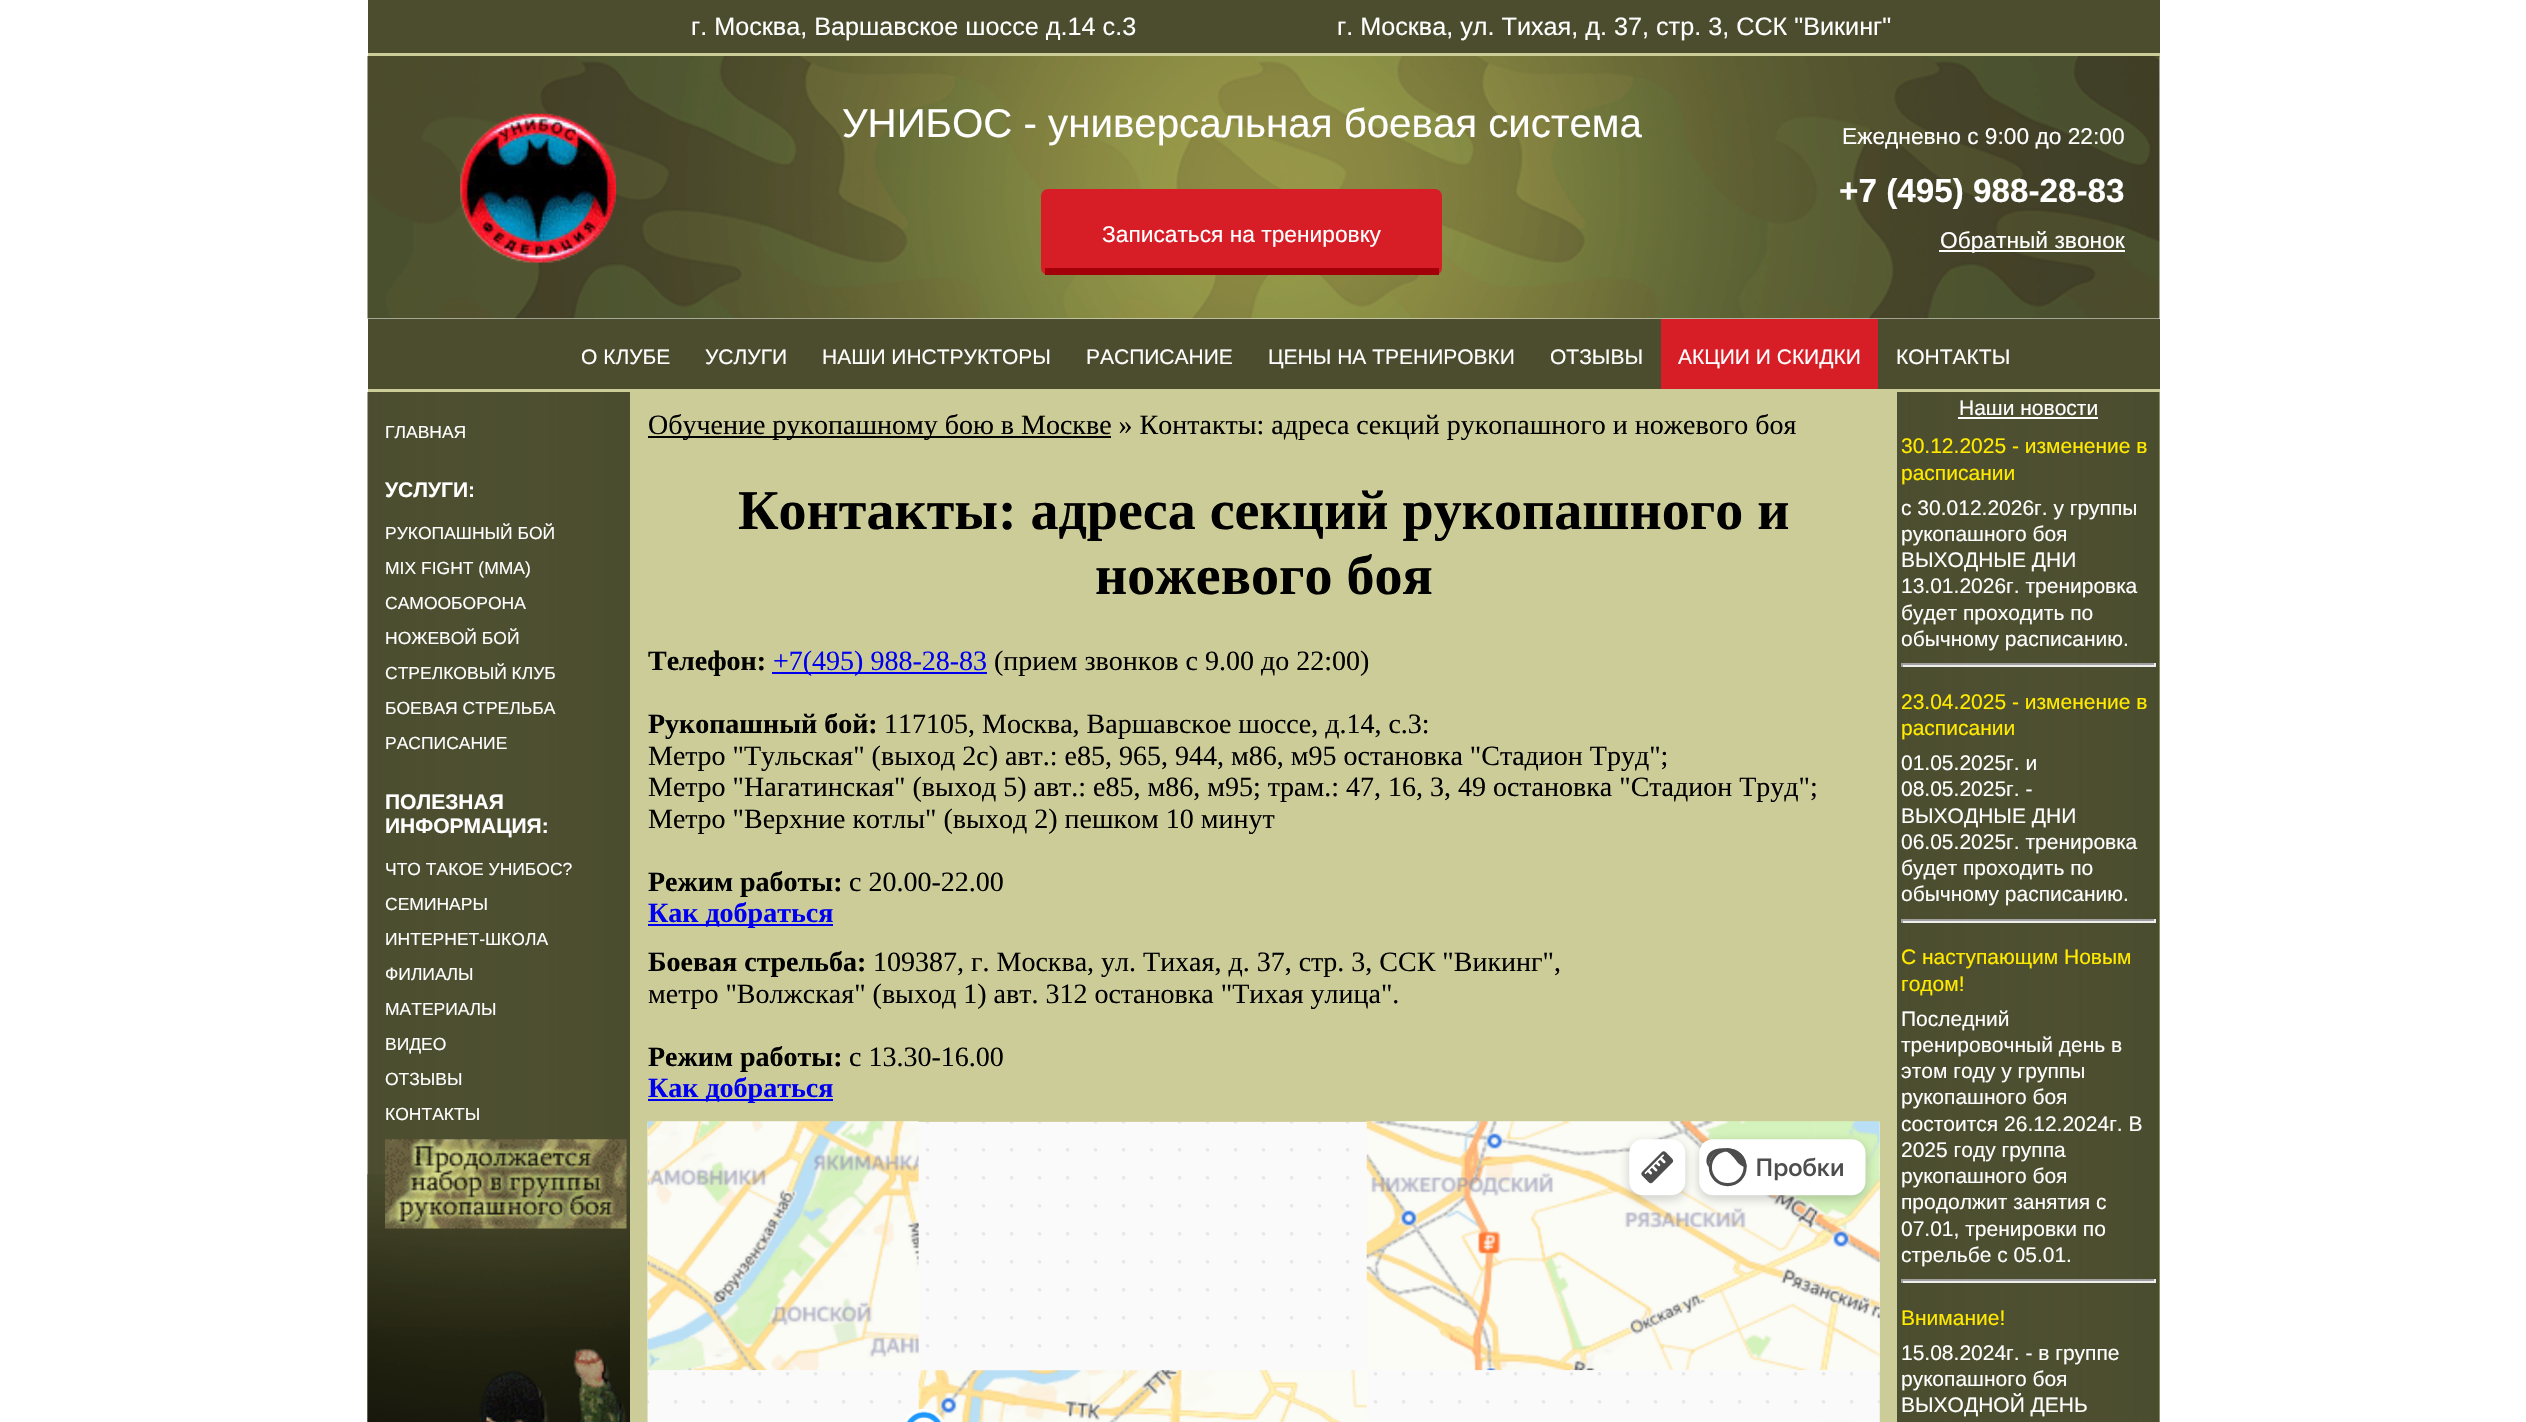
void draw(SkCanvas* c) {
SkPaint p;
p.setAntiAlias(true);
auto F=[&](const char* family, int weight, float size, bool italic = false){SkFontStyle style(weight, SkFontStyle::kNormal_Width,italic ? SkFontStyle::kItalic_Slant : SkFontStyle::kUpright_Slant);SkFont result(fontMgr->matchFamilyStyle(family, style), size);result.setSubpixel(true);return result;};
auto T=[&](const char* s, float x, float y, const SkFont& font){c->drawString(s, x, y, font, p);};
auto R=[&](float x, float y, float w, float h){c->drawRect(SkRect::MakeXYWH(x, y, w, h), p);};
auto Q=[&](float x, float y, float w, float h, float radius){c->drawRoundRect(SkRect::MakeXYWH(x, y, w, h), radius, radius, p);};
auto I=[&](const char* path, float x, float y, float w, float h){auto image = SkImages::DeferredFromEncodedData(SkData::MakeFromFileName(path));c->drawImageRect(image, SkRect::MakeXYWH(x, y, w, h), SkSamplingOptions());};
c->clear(0xffffffff);
p.setColor(0xff4c4d2f);
R(368,0,1792,53);
p.setColor(0xffcccc99);
R(368,53,1792,4);
auto f1 = F("Liberation Sans",400,25.2);
p.setColor(0xffffffff);
T("г. Москва, Варшавское шоссе д.14 с.3",691,35,f1);
T("г. Москва, ул. Тихая, д. 37, стр. 3, ССК \"Викинг\"",1337,35,f1);
I("1.png",367,56,1793,263);
I("2.png",460,113,156,150);
auto f2 = F("Liberation Sans",400,40.25);
T("УНИБОС - универсальная боевая система",842,137,f2);
p.setColor(0xffd71e27);
Q(1041,189,401,86,7);
p.setColor(0xffa20109);
R(1045,268,394,7);
auto f3 = F("Liberation Sans",400,22.75);
p.setColor(0xffffffff);
T("Записаться на тренировку",1102,242,f3);
T("Ежедневно с 9:00 до 22:00",1842,144,f3);
auto f4 = F("Liberation Sans",700,33.25);
T("+7 (495) 988-28-83",1839,202,f4);
R(1939,250,186,2);
T("Обратный звонок",1940,248,f3);
p.setColor(0xff4c4d2f);
R(368,319,1792,70);
p.setColor(0xffcccc99);
R(368,389,1792,3);
auto f5 = F("Liberation Sans",400,21);
p.setColor(0xffffffff);
T("О КЛУБЕ",581,364,f5);
T("УСЛУГИ",705,364,f5);
T("НАШИ ИНСТРУКТОРЫ",822,364,f5);
T("РАСПИСАНИЕ",1086,364,f5);
T("ЦЕНЫ НА ТРЕНИРОВКИ",1268,364,f5);
T("ОТЗЫВЫ",1550,364,f5);
p.setColor(0xffd71e27);
R(1661,319,217,70);
p.setColor(0xffffffff);
T("АКЦИИ И СКИДКИ",1678,364,f5);
T("КОНТАКТЫ",1896,364,f5);
p.setColor(0xffcccc99);
R(630,392,1530,1030);
I("3.png",367,392,263,1030);
auto f6 = F("Liberation Sans",400,17.5);
p.setColor(0xffffffff);
T("ГЛАВНАЯ",385,438,f6);
auto f7 = F("Liberation Sans",700,21);
T("УСЛУГИ:",385,497,f7);
T("РУКОПАШНЫЙ БОЙ",385,539,f6);
T("MIX FIGHT (MMA)",385,574,f6);
T("САМООБОРОНА",385,609,f6);
T("НОЖЕВОЙ БОЙ",385,644,f6);
T("СТРЕЛКОВЫЙ КЛУБ",385,679,f6);
T("БОЕВАЯ СТРЕЛЬБА",385,714,f6);
T("РАСПИСАНИЕ",385,749,f6);
T("ПОЛЕЗНАЯ",385,809,f7);
T("ИНФОРМАЦИЯ:",385,833,f7);
T("ЧТО ТАКОЕ УНИБОС?",385,875,f6);
T("СЕМИНАРЫ",385,910,f6);
T("ИНТЕРНЕТ-ШКОЛА",385,945,f6);
T("ФИЛИАЛЫ",385,980,f6);
T("МАТЕРИАЛЫ",385,1015,f6);
T("ВИДЕО",385,1050,f6);
T("ОТЗЫВЫ",385,1085,f6);
T("КОНТАКТЫ",385,1120,f6);
I("5.png",367,1174,263,248);
I("4.png",385,1139,242,90);
p.setColor(0xff000000);
R(648,436,463,2);
auto f8 = F("Liberation Serif",400,28);
T("Обучение рукопашному бою в Москве » Контакты: адреса секций рукопашного и ножевого боя",648,434,f8);
auto f9 = F("Liberation Serif",700,56);
T("Контакты: адреса секций рукопашного и",738,529,f9);
T("ножевого боя",1095,594,f9);
auto f10 = F("Liberation Serif",700,28);
T("Телефон:",648,670,f10);
p.setColor(0xff0000ee);
R(772,672,215,2);
T("+7(495) 988-28-83",773,670,f8);
p.setColor(0xff000000);
T("(прием звонков с 9.00 до 22:00)",994,670,f8);
T("Рукопашный бой:",648,733,f10);
T("117105, Москва, Варшавское шоссе, д.14, с.3:",884,733,f8);
T("Метро \"Тульская\" (выход 2с) авт.: е85, 965, 944, м86, м95 остановка \"Стадион Труд\";",648,765,f8);
T("Метро \"Нагатинская\" (выход 5) авт.: е85, м86, м95; трам.: 47, 16, 3, 49 остановка \"Стадион Труд\";",648,796,f8);
T("Метро \"Верхние котлы\" (выход 2) пешком 10 минут",648,828,f8);
T("Режим работы:",648,891,f10);
T("с 20.00-22.00",849,891,f8);
p.setColor(0xff0000ee);
R(648,924,185,2);
T("Как добраться",648,922,f10);
p.setColor(0xff000000);
T("Боевая стрельба:",648,971,f10);
T("109387, г. Москва, ул. Тихая, д. 37, стр. 3, ССК \"Викинг\",",873,971,f8);
T("метро \"Волжская\" (выход 1) авт. 312 остановка \"Тихая улица\".",648,1003,f8);
T("Режим работы:",648,1066,f10);
T("с 13.30-16.00",849,1066,f8);
p.setColor(0xff0000ee);
R(648,1099,185,2);
T("Как добраться",648,1097,f10);
I("6.png",647,1121,1233,301);
I("7.png",1897,392,263,1030);
p.setColor(0xffffffff);
T("Наши новости",1959,415,f5);
R(1958,417,140,2);
p.setColor(0xffffea00);
T("30.12.2025 - изменение в",1901,453,f5);
T("расписании",1901,480,f5);
p.setColor(0xffffffff);
T("с 30.012.2026г. у группы",1901,515,f5);
T("рукопашного боя",1901,541,f5);
T("ВЫХОДНЫЕ ДНИ",1901,567,f5);
T("13.01.2026г. тренировка",1901,593,f5);
T("будет проходить по",1901,620,f5);
T("обычному расписанию.",1901,646,f5);
p.setColor(0xff9f9f9f);
R(1901,663,255,2);
p.setColor(0xffeeeeee);
R(2154,663,2,4);
R(1901,665,255,2);
p.setColor(0xff9f9f9f);
R(1901,663,2,4);
p.setColor(0xffffea00);
T("23.04.2025 - изменение в",1901,709,f5);
T("расписании",1901,735,f5);
p.setColor(0xffffffff);
T("01.05.2025г. и",1901,770,f5);
T("08.05.2025г. -",1901,796,f5);
T("ВЫХОДНЫЕ ДНИ",1901,823,f5);
T("06.05.2025г. тренировка",1901,849,f5);
T("будет проходить по",1901,875,f5);
T("обычному расписанию.",1901,901,f5);
p.setColor(0xff9f9f9f);
R(1901,919,255,2);
p.setColor(0xffeeeeee);
R(2154,919,2,4);
R(1901,921,255,2);
p.setColor(0xff9f9f9f);
R(1901,919,2,4);
p.setColor(0xffffea00);
T("С наступающим Новым",1901,964,f5);
T("годом!",1901,991,f5);
p.setColor(0xffffffff);
T("Последний",1901,1026,f5);
T("тренировочный день в",1901,1052,f5);
T("этом году у группы",1901,1078,f5);
T("рукопашного боя",1901,1104,f5);
T("состоится 26.12.2024г. В",1901,1131,f5);
T("2025 году группа",1901,1157,f5);
T("рукопашного боя",1901,1183,f5);
T("продолжит занятия с",1901,1209,f5);
T("07.01, тренировки по",1901,1236,f5);
T("стрельбе с 05.01.",1901,1262,f5);
p.setColor(0xff9f9f9f);
R(1901,1279,255,2);
p.setColor(0xffeeeeee);
R(2154,1279,2,4);
R(1901,1281,255,2);
p.setColor(0xff9f9f9f);
R(1901,1279,2,4);
p.setColor(0xffffea00);
T("Внимание!",1901,1325,f5);
p.setColor(0xffffffff);
T("15.08.2024г. - в группе",1901,1360,f5);
T("рукопашного боя",1901,1386,f5);
T("ВЫХОДНОЙ ДЕНЬ",1901,1412,f5);
}
